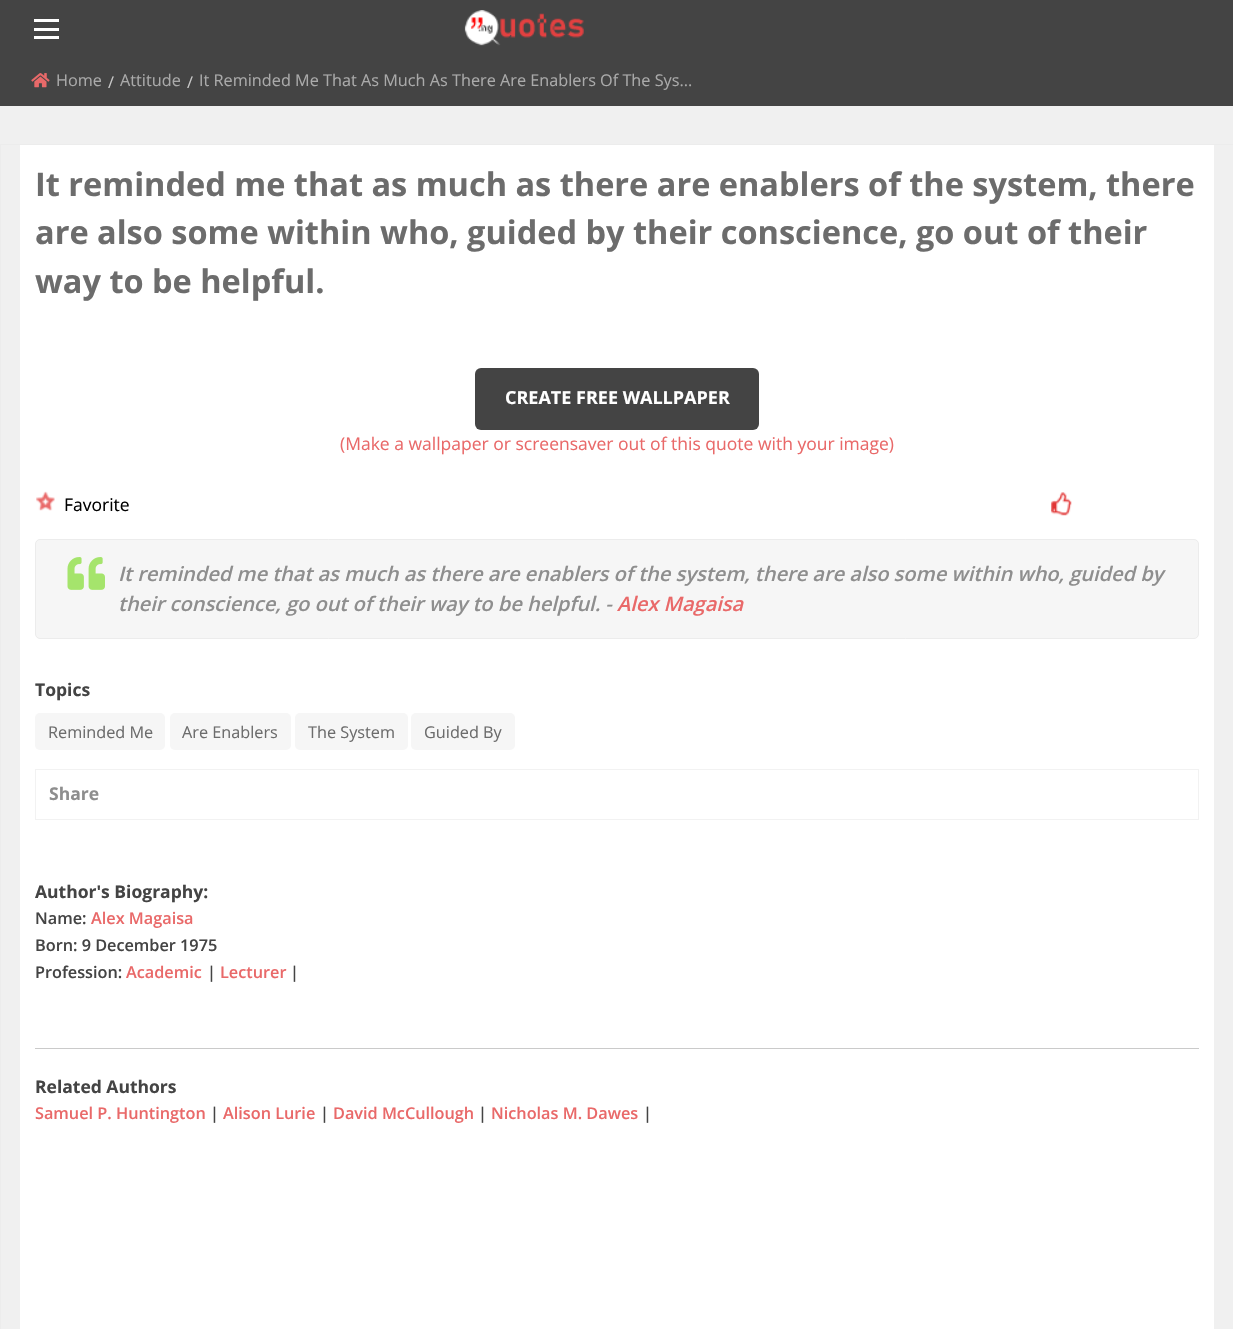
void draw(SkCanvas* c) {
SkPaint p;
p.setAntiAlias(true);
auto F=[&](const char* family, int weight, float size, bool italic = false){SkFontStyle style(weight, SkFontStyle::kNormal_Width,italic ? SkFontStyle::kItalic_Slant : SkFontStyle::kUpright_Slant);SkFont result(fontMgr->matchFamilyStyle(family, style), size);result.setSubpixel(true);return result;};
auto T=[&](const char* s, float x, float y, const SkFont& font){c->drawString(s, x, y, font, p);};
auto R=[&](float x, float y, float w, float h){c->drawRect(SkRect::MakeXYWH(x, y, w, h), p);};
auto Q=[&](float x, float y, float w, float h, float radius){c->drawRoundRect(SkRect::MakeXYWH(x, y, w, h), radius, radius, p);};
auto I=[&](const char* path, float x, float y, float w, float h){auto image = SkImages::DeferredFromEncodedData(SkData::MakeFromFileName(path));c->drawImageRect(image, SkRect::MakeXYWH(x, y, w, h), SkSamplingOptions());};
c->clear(0xfff0f0f0);
p.setColor(0xff444444);
R(0,0,1233,106);
p.setColor(0xffffffff);
R(34,36,25,3);
R(34,28,25,3);
R(34,19,25,3);
I("1.png",464,10,120,36);
I("2.png",31,73,19,15);
auto f1 = F("Open Sans",400,16.25);
p.setColor(0xffaaaaaa);
T("Home",56,86,f1);
p.setColor(0xffcacaca);
T("/",108,88,f1);
p.setColor(0xffaaaaaa);
T("Attitude",120,86,f1);
p.setColor(0xffcacaca);
T("/",187,88,f1);
p.setColor(0xffaaaaaa);
T("It Reminded Me That As Much As There Are Enablers Of The Sys...",199,86,f1);
p.setStroke(true);
p.setStrokeWidth(1);
p.setColor(0xffececec);
c->drawRect(SkRect::MakeXYWH(.5,144.5,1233,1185),p);
p.setStroke(false);
p.setColor(0xffffffff);
R(20,145,1194,1184);
auto f2 = F("Open Sans",700,32.5);
p.setColor(0xff6c6c6c);
T("It reminded me that as much as there are enablers of the system, there",35,196,f2);
T("are also some within who, guided by their conscience, go out of their",35,244,f2);
T("way to be helpful.",35,293,f2);
p.setColor(0xff444444);
Q(475,368,284,62,6);
auto f3 = F("Open Sans",700,18);
p.setColor(0xffffffff);
T("CREATE FREE WALLPAPER",505,404,f3);
auto f4 = F("Open Sans",400,17.5);
p.setColor(0xffe96969);
T("(Make a wallpaper or screensaver out of this quote with your image)",340,450,f4);
I("3.png",36,491,19,20);
p.setColor(0xff000000);
T("Favorite",64,511,f4);
I("4.png",1051,492,21,24);
p.setColor(0xfff6f6f6);
c->drawRoundRect(SkRect::MakeXYWH(35.5,539.5,1163,99),4.5,4.5,p);
p.setStroke(true);
p.setColor(0xffececec);
c->drawRoundRect(SkRect::MakeXYWH(35.5,539.5,1163,99),4.5,4.5,p);
I("5.png",67,557,38,33);
auto f5 = F("Open Sans",600,20,true);
p.setStroke(false);
p.setColor(0xff8e8e8e);
T("It reminded me that as much as there are enablers of the system, there are also some within who, guided by",118,581,f5);
T("their conscience, go out of their way to be helpful. -",118,611,f5);
p.setColor(0xffe96969);
T("Alex Magaisa",617,611,f5);
auto f6 = F("Open Sans",700,17.5);
p.setColor(0xff444444);
T("Topics",35,696,f6);
p.setColor(0xfff6f6f6);
Q(35,713,130,37,5);
p.setColor(0xff6c6c6c);
T("Reminded Me",48,738,f1);
p.setColor(0xfff6f6f6);
Q(170,713,121,37,5);
p.setColor(0xff6c6c6c);
T("Are Enablers",182,738,f1);
p.setColor(0xfff6f6f6);
Q(295,713,113,37,5);
p.setColor(0xff6c6c6c);
T("The System",308,738,f1);
p.setColor(0xfff6f6f6);
Q(411,713,104,37,5);
p.setColor(0xff6c6c6c);
T("Guided By",424,738,f1);
p.setColor(0xfff2f2f2);
R(35,769,1164,1);
R(1198,769,1,51);
R(35,819,1164,1);
R(35,769,1,51);
p.setColor(0xff8e8e8e);
T("Share",49,800,f6);
p.setColor(0xff444444);
T("Author's Biography:",35,898,f6);
auto f7 = F("Open Sans",600,16.25);
T("Name:",35,924,f7);
p.setColor(0xffe96969);
T("Alex Magaisa",91,924,f7);
p.setColor(0xff444444);
T("Born: 9 December 1975",35,951,f7);
T("Profession:",35,978,f7);
p.setColor(0xffe96969);
T("Academic",126,978,f7);
p.setColor(0xff444444);
T("|",207,978,f7);
p.setColor(0xffe96969);
T("Lecturer",220,978,f7);
p.setColor(0xff444444);
T("|",290,978,f7);
p.setColor(0xffcacaca);
R(35,1048,1164,1);
p.setColor(0xff444444);
T("Related Authors",35,1093,f6);
p.setColor(0xffe96969);
T("Samuel P. Huntington",35,1119,f7);
p.setColor(0xff444444);
T("|",210,1119,f7);
p.setColor(0xffe96969);
T("Alison Lurie",223,1119,f7);
p.setColor(0xff444444);
T("|",320,1119,f7);
p.setColor(0xffe96969);
T("David McCullough",333,1119,f7);
p.setColor(0xff444444);
T("|",478,1119,f7);
p.setColor(0xffe96969);
T("Nicholas M. Dawes",491,1119,f7);
p.setColor(0xff444444);
T("|",643,1119,f7);
}
